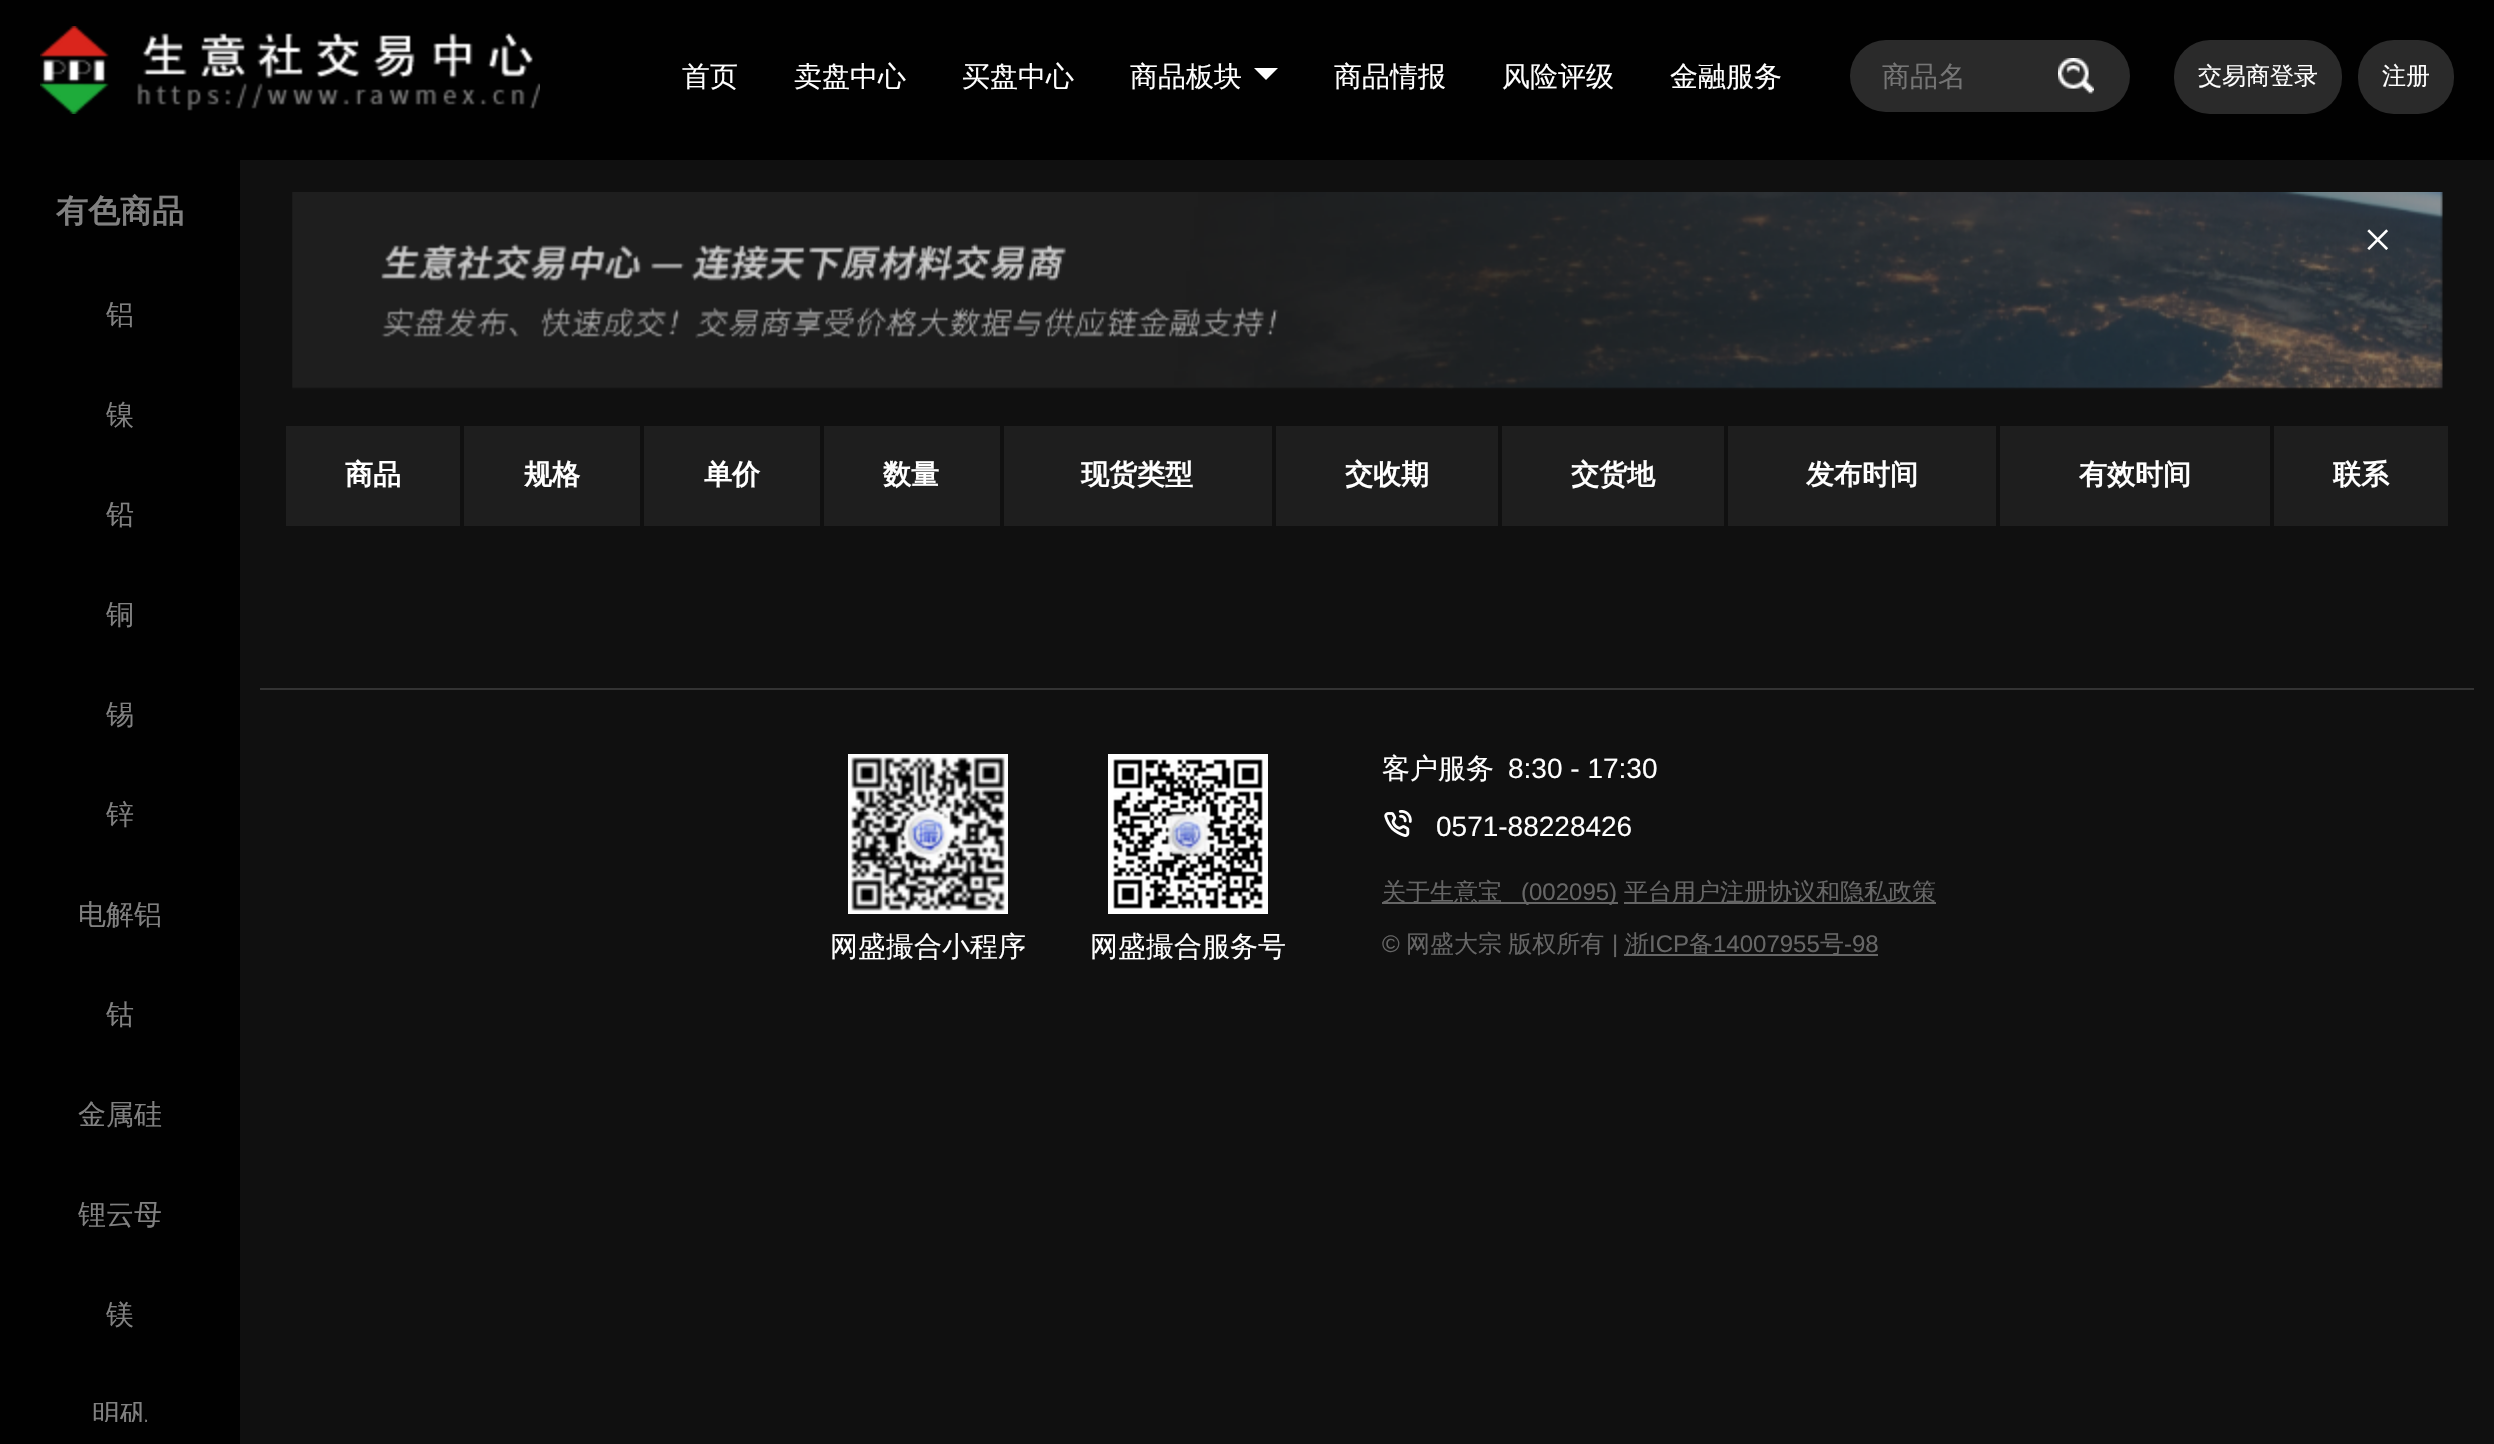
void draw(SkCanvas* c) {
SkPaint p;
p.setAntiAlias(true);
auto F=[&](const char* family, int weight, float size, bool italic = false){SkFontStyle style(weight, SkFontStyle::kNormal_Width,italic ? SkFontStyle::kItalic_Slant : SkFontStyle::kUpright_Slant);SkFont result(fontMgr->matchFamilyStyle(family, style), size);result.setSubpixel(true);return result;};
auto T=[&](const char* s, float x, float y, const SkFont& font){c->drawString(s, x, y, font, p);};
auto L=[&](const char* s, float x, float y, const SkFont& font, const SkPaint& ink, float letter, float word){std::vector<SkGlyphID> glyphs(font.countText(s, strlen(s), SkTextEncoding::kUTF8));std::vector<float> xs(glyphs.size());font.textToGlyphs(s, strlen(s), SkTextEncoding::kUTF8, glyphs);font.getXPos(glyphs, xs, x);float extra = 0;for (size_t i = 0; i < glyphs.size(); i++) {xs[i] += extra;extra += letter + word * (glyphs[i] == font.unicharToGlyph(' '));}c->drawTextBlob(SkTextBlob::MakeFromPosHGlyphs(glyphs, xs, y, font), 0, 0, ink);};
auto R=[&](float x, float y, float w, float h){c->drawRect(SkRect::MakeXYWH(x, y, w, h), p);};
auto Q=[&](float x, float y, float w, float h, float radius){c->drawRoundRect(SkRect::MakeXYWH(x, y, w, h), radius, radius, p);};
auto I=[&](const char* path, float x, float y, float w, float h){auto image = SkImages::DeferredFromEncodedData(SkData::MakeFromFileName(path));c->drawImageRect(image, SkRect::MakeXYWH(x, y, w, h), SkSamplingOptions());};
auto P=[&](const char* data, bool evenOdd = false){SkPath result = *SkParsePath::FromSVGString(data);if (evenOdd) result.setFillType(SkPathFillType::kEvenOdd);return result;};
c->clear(0xff010101);
I("1.png",40,26,500,88);
auto f1 = F("WenQuanYi Zen Hei",500,28);
p.setColor(0xffffffff);
T("首页",682,86,f1);
T("卖盘中心",794,86,f1);
T("买盘中心",962,86,f1);
T("商品板块",1130,86,f1);
c->drawPath(P("M1254 68h24l-12 12z"),p);
T("商品情报",1334,86,f1);
T("风险评级",1502,86,f1);
T("金融服务",1670,86,f1);
p.setColor(0xff2a2a2a);
Q(1850,40,280,72,36);
p.setColor(0xff757575);
T("商品名",1882,86,f1);
I("2.png",2058,58,36,36);
p.setColor(0xff2a2a2a);
Q(2174,40,168,74,36);
auto f2 = F("WenQuanYi Zen Hei",500,24);
p.setColor(0xffffffff);
T("交易商登录",2198,84,f2);
p.setColor(0xff2a2a2a);
Q(2358,40,96,74,36);
p.setColor(0xffffffff);
T("注册",2382,84,f2);
auto f3 = F("WenQuanYi Zen Hei",700,32);
p.setColor(0xff808080);
T("有色商品",56,222,f3);
T("铝",106,324,f1);
T("镍",106,424,f1);
T("铅",106,524,f1);
T("铜",106,624,f1);
T("锡",106,724,f1);
T("锌",106,824,f1);
T("电解铝",78,924,f1);
T("钴",106,1024,f1);
T("金属硅",78,1124,f1);
T("锂云母",78,1224,f1);
T("镁",106,1324,f1);
c->save();
c->clipRect(SkRect::MakeXYWH(0,266,240,1156));
T("明矾",92,1424,f1);
c->restore();
p.setColor(0xff101010);
R(240,160,2254,1284);
I("3.png",292,192,2151,198);
I("4.png",2367,229,21,21);
p.setColor(0xff1e1e1e);
R(286,426,2162,100);
p.setStroke(true);
p.setStrokeWidth(2);
p.setColor(0xff101010);
c->drawRect(SkRect::MakeXYWH(285,425,176,102),p);
auto f4 = F("WenQuanYi Zen Hei",700,28);
p.setStroke(false);
p.setColor(0xffffffff);
T("商品",345,484,f4);
p.setStroke(true);
p.setColor(0xff101010);
c->drawRect(SkRect::MakeXYWH(463,425,178,102),p);
p.setStroke(false);
p.setColor(0xffffffff);
T("规格",524,484,f4);
p.setStroke(true);
p.setColor(0xff101010);
c->drawRect(SkRect::MakeXYWH(643,425,178,102),p);
p.setStroke(false);
p.setColor(0xffffffff);
T("单价",704,484,f4);
p.setStroke(true);
p.setColor(0xff101010);
c->drawRect(SkRect::MakeXYWH(823,425,178,102),p);
p.setStroke(false);
p.setColor(0xffffffff);
T("数量",883,484,f4);
p.setStroke(true);
p.setColor(0xff101010);
c->drawRect(SkRect::MakeXYWH(1003,425,270,102),p);
p.setStroke(false);
p.setColor(0xffffffff);
T("现货类型",1081,484,f4);
p.setStroke(true);
p.setColor(0xff101010);
c->drawRect(SkRect::MakeXYWH(1275,425,224,102),p);
p.setStroke(false);
p.setColor(0xffffffff);
T("交收期",1345,484,f4);
p.setStroke(true);
p.setColor(0xff101010);
c->drawRect(SkRect::MakeXYWH(1501,425,224,102),p);
p.setStroke(false);
p.setColor(0xffffffff);
T("交货地",1571,484,f4);
p.setStroke(true);
p.setColor(0xff101010);
c->drawRect(SkRect::MakeXYWH(1727,425,270,102),p);
p.setStroke(false);
p.setColor(0xffffffff);
T("发布时间",1806,484,f4);
p.setStroke(true);
p.setColor(0xff101010);
c->drawRect(SkRect::MakeXYWH(1999,425,272,102),p);
p.setStroke(false);
p.setColor(0xffffffff);
T("有效时间",2079,484,f4);
p.setStroke(true);
p.setColor(0xff101010);
c->drawRect(SkRect::MakeXYWH(2273,425,176,102),p);
p.setStroke(false);
p.setColor(0xffffffff);
T("联系",2333,484,f4);
p.setColor(0xff333333);
R(260,688,2214,2);
I("5.png",848,754,160,160);
p.setColor(0xffffffff);
T("网盛撮合小程序",830,956,f1);
I("6.png",1108,754,160,160);
T("网盛撮合服务号",1090,956,f1);
T("客户服务",1382,778,f1);
auto f5 = F("Liberation Sans",400,28);
T("8:30 - 17:30",1508,778,f5);
I("7.png",1384,810,28,27);
T("0571-88228426",1436,836,f5);
p.setColor(0xff666666);
R(1382,902,236,2);
T("关于生意宝",1382,900,f2);
auto f6 = F("Liberation Sans",400,24);
T("(002095)",1521,900,f6);
R(1624,902,312,2);
T("平台用户注册协议和隐私政策",1624,900,f2);
T("©",1382,952,f6);
L("网盛大宗 版权所有",1406,952,f2,p,0,-1);
T("|",1612,952,f6);
R(1624,954,254,2);
T("浙",1625,952,f2);
T("ICP",1649,952,f6);
T("备",1689,952,f2);
T("14007955",1713,952,f6);
T("号",1820,952,f2);
T("-98",1844,952,f6);
}
